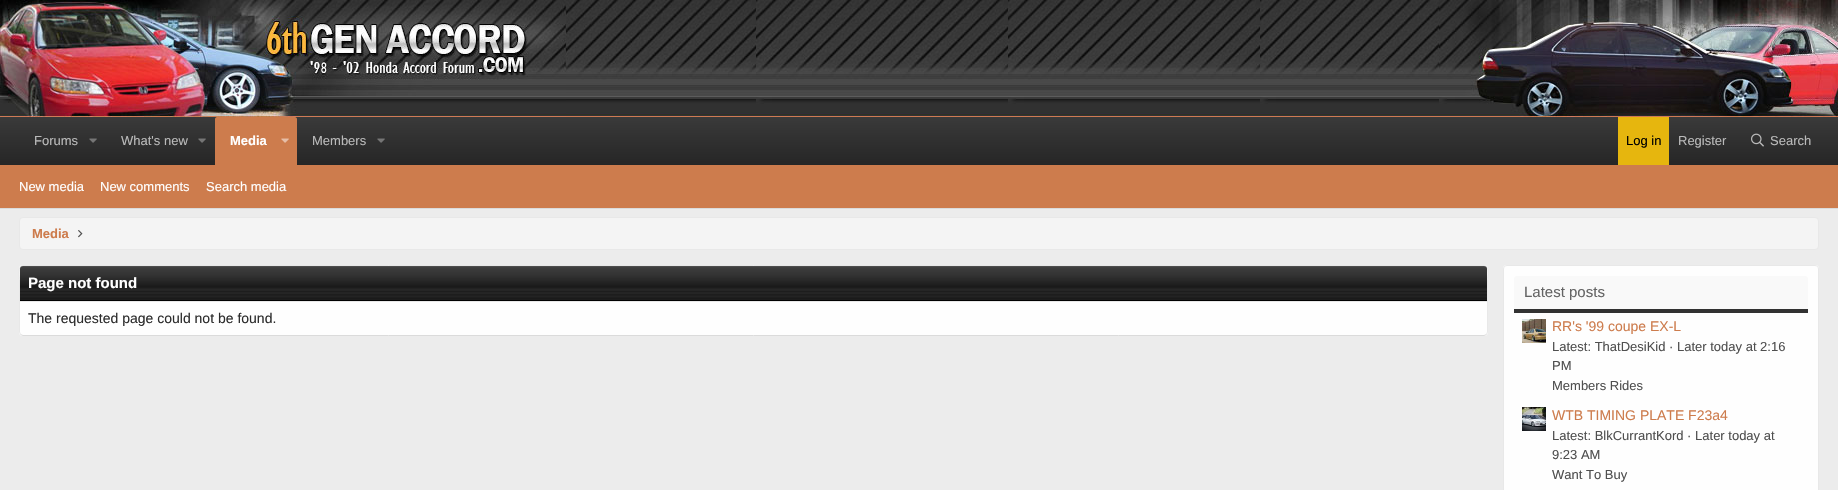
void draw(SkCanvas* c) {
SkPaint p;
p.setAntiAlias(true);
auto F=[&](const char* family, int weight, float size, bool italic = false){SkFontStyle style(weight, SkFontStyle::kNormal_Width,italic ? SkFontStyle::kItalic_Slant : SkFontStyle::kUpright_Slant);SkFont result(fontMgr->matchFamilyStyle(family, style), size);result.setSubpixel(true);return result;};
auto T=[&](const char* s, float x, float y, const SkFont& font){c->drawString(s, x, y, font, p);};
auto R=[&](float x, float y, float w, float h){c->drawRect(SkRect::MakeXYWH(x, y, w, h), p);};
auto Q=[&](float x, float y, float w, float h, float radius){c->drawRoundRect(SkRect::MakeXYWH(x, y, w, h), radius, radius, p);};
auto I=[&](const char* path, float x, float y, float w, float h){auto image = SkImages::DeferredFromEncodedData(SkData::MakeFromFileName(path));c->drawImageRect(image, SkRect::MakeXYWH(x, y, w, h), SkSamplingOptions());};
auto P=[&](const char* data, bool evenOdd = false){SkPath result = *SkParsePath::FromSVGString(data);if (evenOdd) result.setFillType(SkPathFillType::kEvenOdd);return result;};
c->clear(0xffececec);
I("1.png",566,0,873,117);
I("2.png",0,0,566,117);
I("3.png",1439,0,399,117);
{
const SkColor colors[] = {0xff3a3a3a,0xff262626};
const float stops[] = {0,1};
const SkPoint ends[] = {{919,117}, {919,165}};
p.setShader(SkGradientShader::MakeLinear(ends, colors, stops, 2, SkTileMode::kClamp));
p.setAlpha(255);
}
R(0,117,1838,48);
auto f1 = F("Liberation Sans",400,13);
p.setShader(nullptr);
p.setColor(0xffbababa);
T("Forums",34,145,f1);
I("4.png",89,138,8,5);
T("What's new",121,145,f1);
I("4.png",198,138,8,5);
p.setColor(0xffcd7c4d);
c->drawPath(P("M217 117h78c1 0 2 1 2 2v46h-82v-46c0-1 1-2 2-2z"),p);
auto f2 = F("Liberation Sans",700,13);
p.setColor(0xffffffff);
T("Media",230,145,f2);
I("5.png",281,138,8,5);
p.setColor(0xffbababa);
T("Members",312,145,f1);
I("4.png",377,138,8,5);
p.setColor(0xffe6b60e);
R(1618,117,51,48);
p.setColor(0xff000000);
T("Log in",1626,145,f1);
p.setColor(0xffbababa);
T("Register",1678,145,f1);
I("6.png",1751,133,13,14);
T("Search",1770,145,f1);
p.setColor(0xffcd7c4d);
R(0,165,1838,43);
p.setColor(0xffdbdbdb);
R(0,208,1838,1);
p.setColor(0xffffffff);
T("New media",19,191,f1);
T("New comments",100,191,f1);
T("Search media",206,191,f1);
p.setColor(0xfff4f4f4);
c->drawRoundRect(SkRect::MakeXYWH(19.5,217.5,1799,32),3.5,3.5,p);
p.setStroke(true);
p.setStrokeWidth(1);
p.setColor(0xffe8e8e8);
c->drawRoundRect(SkRect::MakeXYWH(19.5,217.5,1799,32),3.5,3.5,p);
p.setStroke(false);
p.setColor(0xffcd7c4d);
T("Media",32,238,f2);
I("7.png",78,230,5,8);
p.setColor(0xfffefefe);
Q(19,265,1469,71,4);
p.setStroke(true);
p.setColor(0xffdbdbdb);
c->drawPath(P("M1486.5 334.5l-2.5 1h-1461l-2.5-1"),p);
p.setColor(0xffe8e8e8);
c->drawPath(P("M20.5 334.5l-1-2.5v-52.5c0-1-2.5-14 3.5-14h1461c6 0 3.5 13 3.5 14v52.5l-1 2.5"),p);
I("8.png",20,266,1467,35);
p.setStroke(false);
R(20,301,1467,1);
auto f3 = F("Liberation Sans",700,15);
p.setColor(0xffffffff);
T("Page not found",28,288,f3);
auto f4 = F("Liberation Sans",400,14);
p.setColor(0xff2c2c2c);
T("The requested page could not be found.",28,323,f4);
p.setColor(0xfffefefe);
Q(1503,265,316,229,4);
p.setStroke(true);
p.setColor(0xffe8e8e8);
c->drawPath(P("M1504.5 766.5c-.5-.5-1-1.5-1-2.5v-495c0-1 .5-2 1-2.5c.5-.5 1.5-1 2.5-1h308c1 0 2 .5 2.5 1c.5 .5 1 1.5 1 2.5v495c0 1-.5 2-1 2.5"),p);
p.setStroke(false);
p.setColor(0xfff9f9f9);
c->drawPath(P("M1517 276h288c1.5 0 3 1.5 3 3v34h-294v-34c0-1.5 1.5-3 3-3z"),p);
p.setColor(0xff323232);
R(1514,309,294,4);
auto f5 = F("Liberation Sans",400,15);
p.setColor(0xff646464);
T("Latest posts",1524,297,f5);
I("9.png",1522,319,24,24);
p.setColor(0xffcd7c4d);
T("RR's '99 coupe EX-L",1552,331,f4);
p.setColor(0xff4f4f4f);
T("Latest: ThatDesiKid · Later today at 2:16",1552,351,f1);
T("PM",1552,370,f1);
T("Members Rides",1552,390,f1);
I("10.png",1522,407,24,24);
p.setColor(0xffcd7c4d);
T("WTB TIMING PLATE F23a4",1552,420,f4);
p.setColor(0xff4f4f4f);
T("Latest: BlkCurrantKord · Later today at",1552,440,f1);
T("9:23 AM",1552,459,f1);
T("Want To Buy",1552,479,f1);
}
